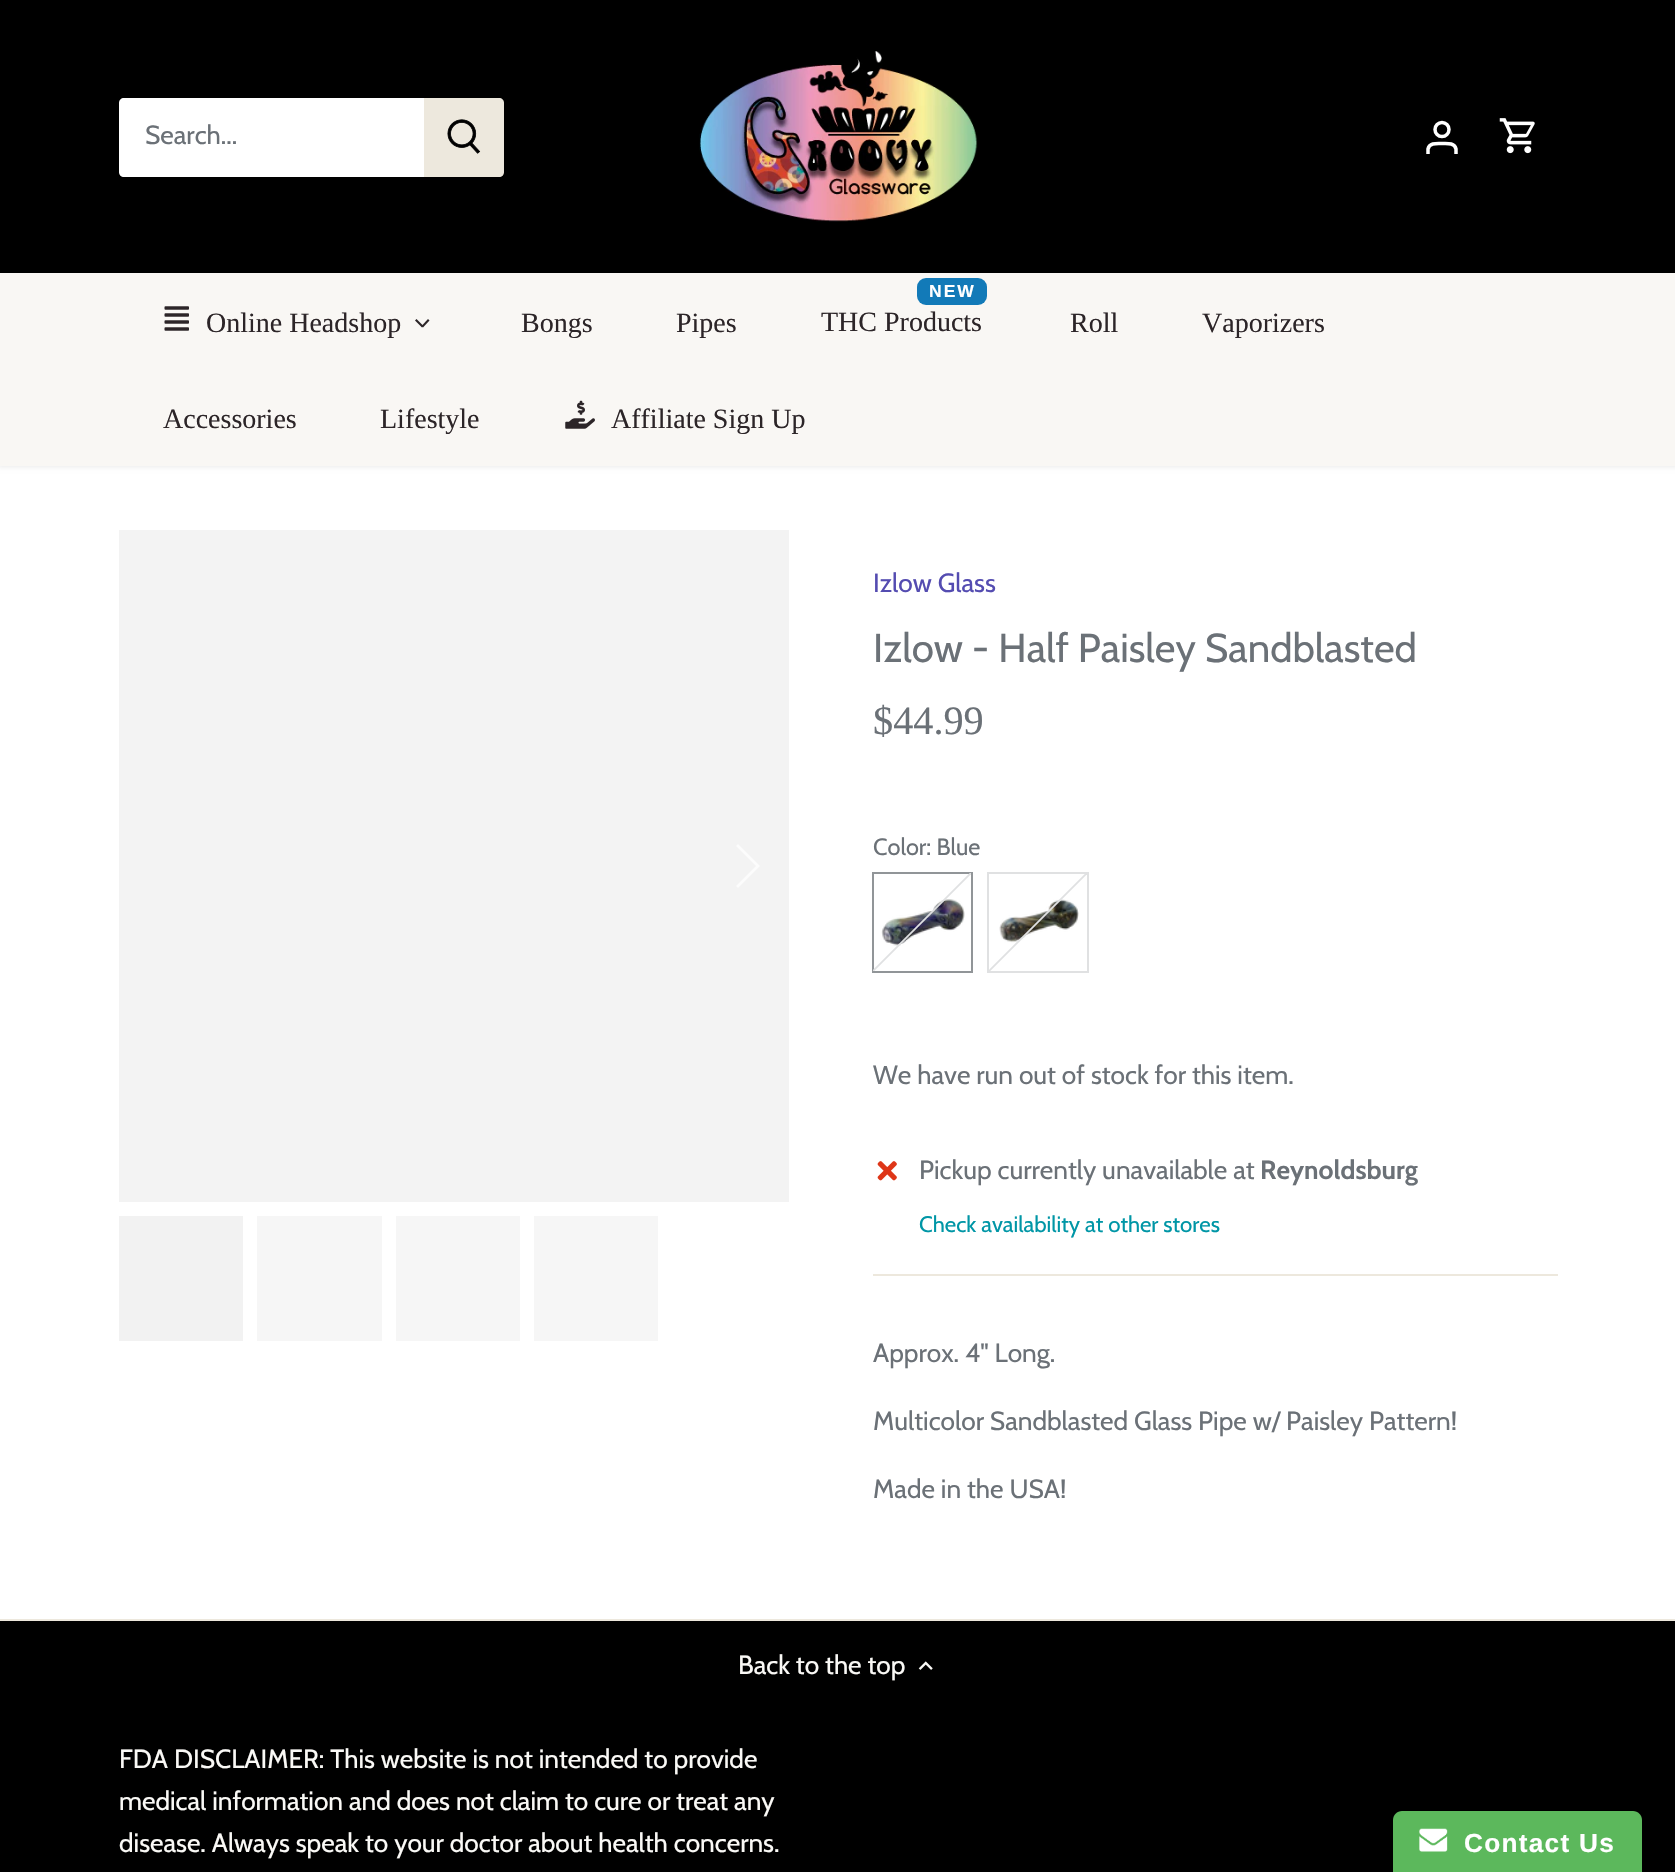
void draw(SkCanvas* c) {
SkPaint p;
p.setAntiAlias(true);
auto F=[&](const char* family, int weight, float size, bool italic = false){SkFontStyle style(weight, SkFontStyle::kNormal_Width,italic ? SkFontStyle::kItalic_Slant : SkFontStyle::kUpright_Slant);SkFont result(fontMgr->matchFamilyStyle(family, style), size);result.setSubpixel(true);return result;};
auto T=[&](const char* s, float x, float y, const SkFont& font){c->drawString(s, x, y, font, p);};
auto L=[&](const char* s, float x, float y, const SkFont& font, const SkPaint& ink, float letter, float word){std::vector<SkGlyphID> glyphs(font.countText(s, strlen(s), SkTextEncoding::kUTF8));std::vector<float> xs(glyphs.size());font.textToGlyphs(s, strlen(s), SkTextEncoding::kUTF8, glyphs);font.getXPos(glyphs, xs, x);float extra = 0;for (size_t i = 0; i < glyphs.size(); i++) {xs[i] += extra;extra += letter + word * (glyphs[i] == font.unicharToGlyph(' '));}c->drawTextBlob(SkTextBlob::MakeFromPosHGlyphs(glyphs, xs, y, font), 0, 0, ink);};
auto R=[&](float x, float y, float w, float h){c->drawRect(SkRect::MakeXYWH(x, y, w, h), p);};
auto Q=[&](float x, float y, float w, float h, float radius){c->drawRoundRect(SkRect::MakeXYWH(x, y, w, h), radius, radius, p);};
auto I=[&](const char* path, float x, float y, float w, float h){auto image = SkImages::DeferredFromEncodedData(SkData::MakeFromFileName(path));c->drawImageRect(image, SkRect::MakeXYWH(x, y, w, h), SkSamplingOptions());};
auto P=[&](const char* data, bool evenOdd = false){SkPath result = *SkParsePath::FromSVGString(data);if (evenOdd) result.setFillType(SkPathFillType::kEvenOdd);return result;};
c->clear(0xff000000);
p.setColor(0xffffffff);
R(0,466,1675,1153);
p.setColor(0x14000000);
p.setMaskFilter(SkMaskFilter::MakeBlur(kNormal_SkBlurStyle, 2.5));
c->drawRect(SkRect::MakeXYWH(-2,-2,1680,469),p);
p.setMaskFilter(nullptr);
p.setColor(0xfff9f7f4);
R(0,273,1675,193);
p.setColor(0xffffffff);
c->drawPath(P("M124 98h301v79h-301c-3 0-5-2-5-5v-69c0-3 2-5 5-5z"),p);
auto f1 = F("Cabin",400,26.25);
p.setColor(0xff6b7177);
T("Search...",145,144,f1);
p.setColor(0xffede8dd);
c->drawPath(P("M424 98h75c3 0 5 2 5 5v69c0 3-2 5-5 5h-75z"),p);
I("1.png",447,119,34,35);
I("2.png",699,51,279,171);
p.setStroke(true);
p.setStrokeWidth(3.5);
p.setColor(0xffffffff);
c->drawCircle(1442,129.5,7,p);
c->drawPath(P("M1456 154v-5c-1.5-6.5-9-5.5-14-5.5c-5 0-12.5-1-14 5.5v5"),p);
I("3.png",1499,118,36,36);
I("4.png",164,306,25,25);
auto f2 = F("Liberation Serif",400,28);
p.setStroke(false);
p.setColor(0xff2c2528);
T("Online Headshop",206,332,f2);
c->drawPath(P("M428 319l1.5 1.5l-6.5 7l-1.5-1.5z"),p);
c->drawPath(P("M416.5 319l7 7l-1.5 1.5l-7-7z"),p);
T("Bongs",521,332,f2);
T("Pipes",676,332,f2);
p.setColor(0xff127ab8);
Q(917,278,70,27,9);
auto f3 = F("Liberation Sans",700,17.5);
p.setColor(0xffffffff);
L("NEW",929,297,f3,p,2,0);
p.setColor(0xff2c2528);
T("THC Products",821,331,f2);
T("Roll",1070,332,f2);
T("Vaporizers",1202,332,f2);
T("Accessories",163,428,f2);
T("Lifestyle",380,428,f2);
I("5.png",565,400,30,29);
T("Affiliate Sign Up",611,428,f2);
p.setColor(0xfff3f3f3);
R(119,530,670,672);
p.setColor(0xfffcfcfc);
c->drawPath(P("M738 844l-2 2l20 20l-20 20l2 2l22-22z"),p);
p.setColor(0xfff2f2f2);
R(119,1216,124,125);
p.setColor(0xfff6f6f6);
R(257,1216,125,125);
R(396,1216,124,125);
R(534,1216,124,125);
p.setColor(0xff544cb1);
T("Izlow Glass",873,592,f1);
auto f4 = F("Cabin",400,40.25);
p.setColor(0xff6b7177);
T("Izlow - Half Paisley Sandblasted",873,662,f4);
auto f5 = F("Liberation Serif",400,40.25);
T("$44.99",873,734,f5);
auto f6 = F("Cabin",400,23.5);
T("Color: Blue",873,855,f6);
p.setStroke(true);
p.setStrokeWidth(2);
p.setColor(0xff919598);
c->drawRect(SkRect::MakeXYWH(873,873,99,99),p);
I("6.png",881,899,84,47);
c->save();
c->clipRect(SkRect::MakeXYWH(873,873,98,98));
p.setStrokeWidth(1.8);
p.setColor(0xffe0e1e2);
c->drawPath(P("M971 873l-98 98"),p);
c->restore();
p.setStrokeWidth(2);
c->drawRect(SkRect::MakeXYWH(988,873,100,99),p);
I("7.png",999,899,80,44);
c->save();
c->clipRect(SkRect::MakeXYWH(989,873,98,98));
p.setStrokeWidth(1.8);
c->drawPath(P("M1087 873l-98 98"),p);
c->restore();
p.setStroke(false);
p.setColor(0xff6b7177);
T("We have run out of stock for this item.",873,1084,f1);
I("8.png",877,1161,20,20);
T("Pickup currently unavailable at",919,1179,f1);
auto f7 = F("Cabin",700,26.25);
T("Reynoldsburg",1260,1179,f7);
auto f8 = F("Cabin",400,22.25);
p.setColor(0xff0096a6);
T("Check availability at other stores",919,1232,f8);
p.setColor(0xffede8dd);
R(873,1274,685,2);
p.setColor(0xff6b7177);
T("Approx. 4\" Long.",873,1362,f1);
T("Multicolor Sandblasted Glass Pipe w/ Paisley Pattern!",873,1430,f1);
T("Made in the USA!",873,1498,f1);
p.setColor(0xffede8dd);
R(0,1619,1675,2);
p.setColor(0xfffaf9f6);
T("Back to the top",738,1674,f1);
I("9.png",918,1661,15,9);
T("FDA DISCLAIMER: This website is not intended to provide",119,1768,f1);
T("medical information and does not claim to cure or treat any",119,1810,f1);
T("disease. Always speak to your doctor about health concerns.",119,1852,f1);
p.setColor(0xff5cb85c);
c->drawPath(P("M1402 1811h231c5 0 9 4 9 9v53h-249v-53c0-5 4-9 9-9z"),p);
I("10.png",1419,1828,29,24);
auto f9 = F("Liberation Sans",700,26.25);
p.setColor(0xffffffff);
L("Contact Us",1464,1852,f9,p,1.25,0);
}
